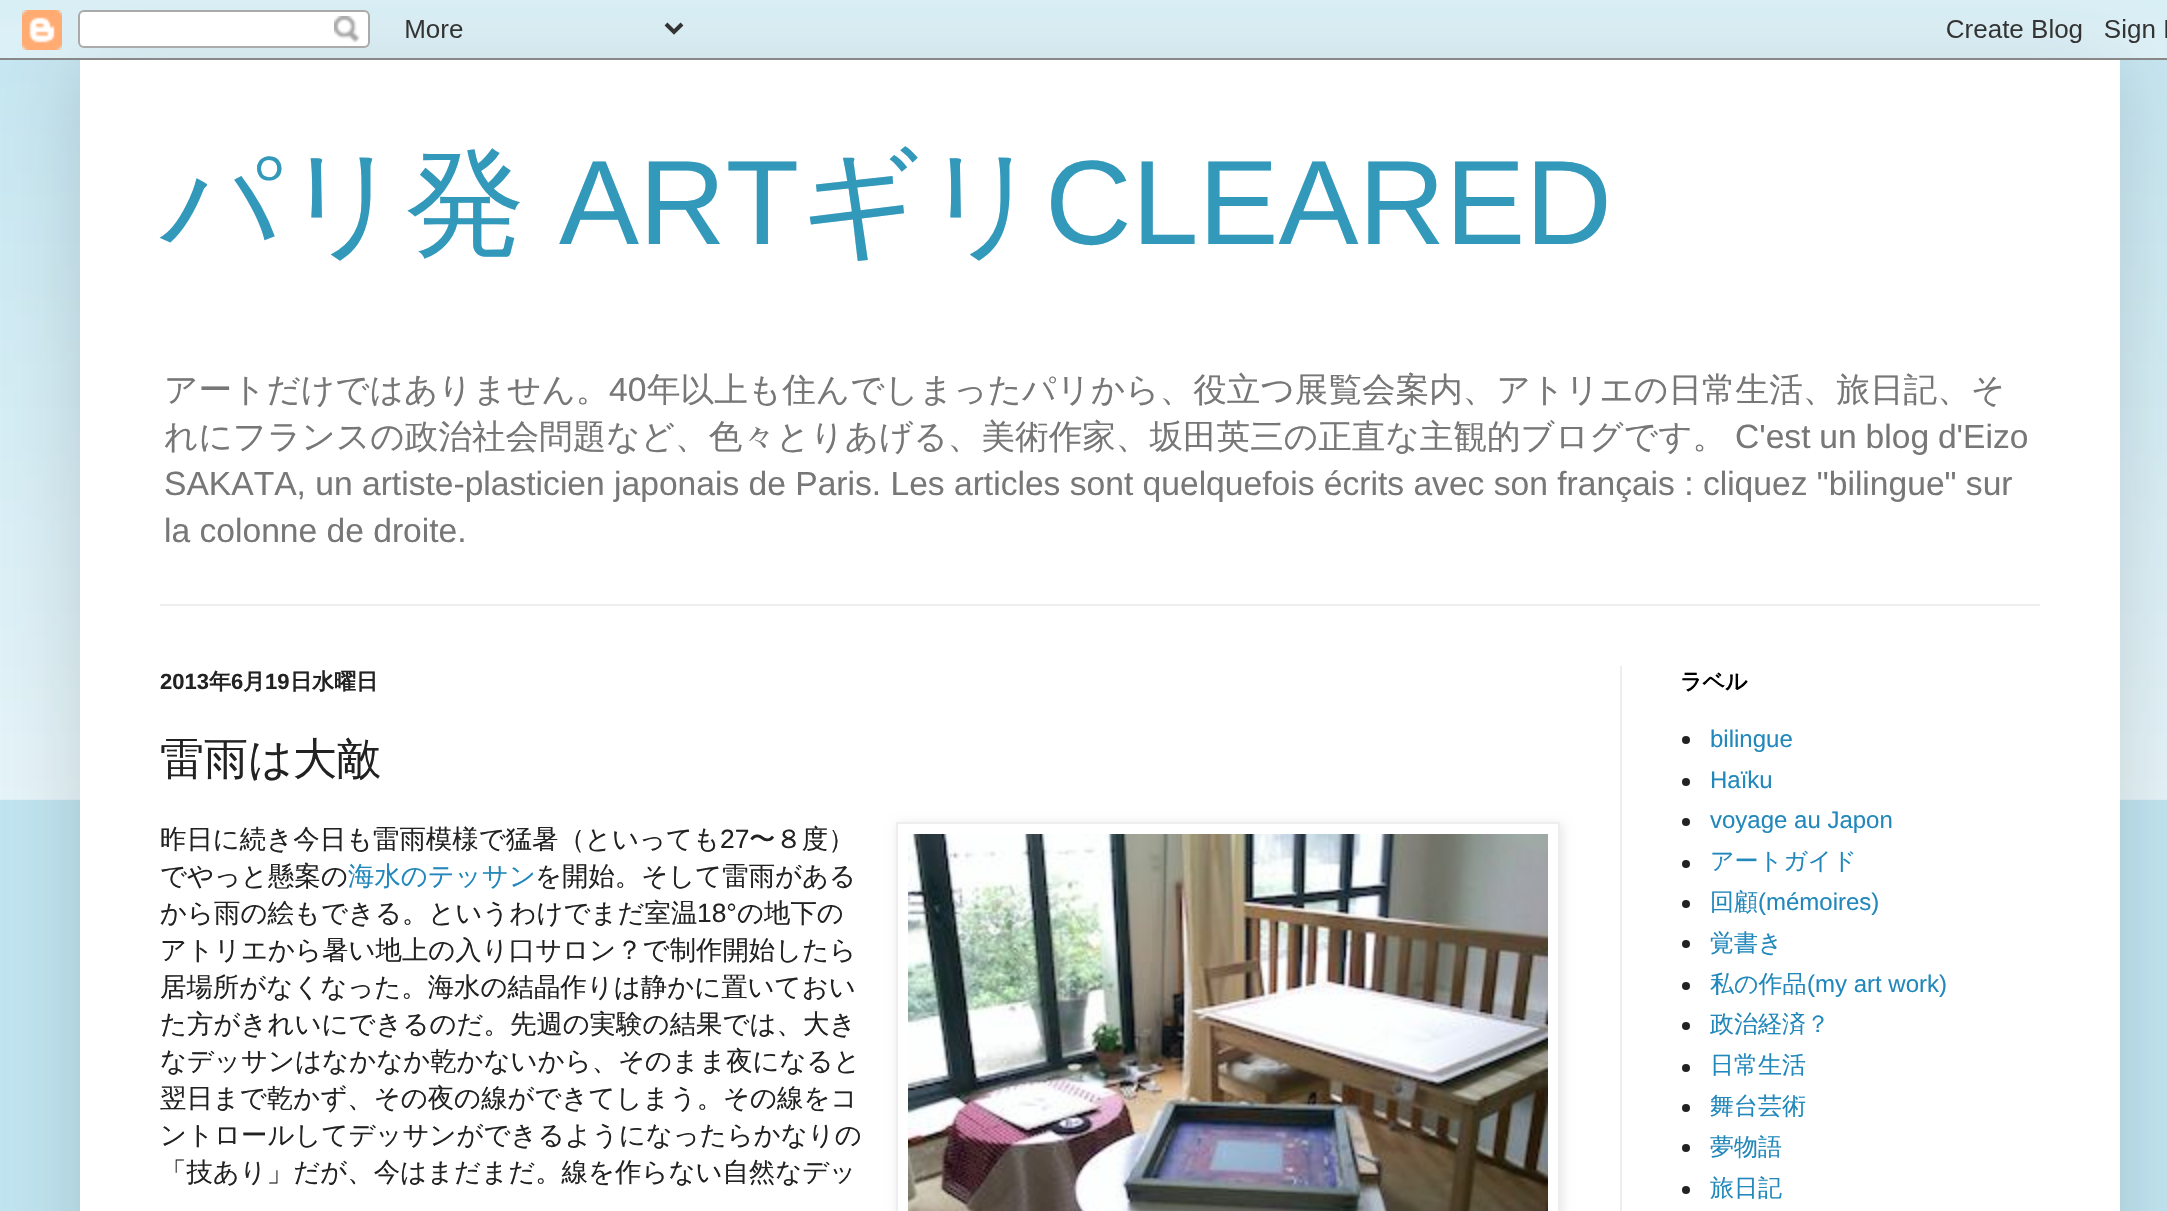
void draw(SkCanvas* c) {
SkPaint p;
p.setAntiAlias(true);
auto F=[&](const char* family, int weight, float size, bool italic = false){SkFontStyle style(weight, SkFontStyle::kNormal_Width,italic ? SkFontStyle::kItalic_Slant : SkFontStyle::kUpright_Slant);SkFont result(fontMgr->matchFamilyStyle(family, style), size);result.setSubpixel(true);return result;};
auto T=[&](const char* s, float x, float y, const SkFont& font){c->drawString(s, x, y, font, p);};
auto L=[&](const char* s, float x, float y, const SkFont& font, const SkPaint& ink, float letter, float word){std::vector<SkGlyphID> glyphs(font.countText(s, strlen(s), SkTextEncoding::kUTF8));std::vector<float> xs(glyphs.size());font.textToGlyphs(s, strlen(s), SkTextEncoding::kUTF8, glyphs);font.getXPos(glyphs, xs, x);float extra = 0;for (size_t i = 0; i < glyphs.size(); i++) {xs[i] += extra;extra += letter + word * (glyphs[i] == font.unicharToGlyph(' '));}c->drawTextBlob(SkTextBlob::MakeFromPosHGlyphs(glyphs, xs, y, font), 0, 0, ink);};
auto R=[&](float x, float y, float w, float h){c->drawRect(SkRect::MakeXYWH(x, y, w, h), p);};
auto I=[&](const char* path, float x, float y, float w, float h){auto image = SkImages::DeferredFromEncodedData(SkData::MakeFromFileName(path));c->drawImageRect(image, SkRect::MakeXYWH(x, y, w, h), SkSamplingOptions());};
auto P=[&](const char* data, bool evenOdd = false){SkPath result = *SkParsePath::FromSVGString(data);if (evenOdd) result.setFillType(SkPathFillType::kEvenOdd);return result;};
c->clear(0xffc1e5f1);
I("2.png",0,20,2167,780);
p.setColor(0x26000000);
p.setMaskFilter(SkMaskFilter::MakeBlur(kNormal_SkBlurStyle, 40));
c->drawRect(SkRect::MakeXYWH(80,60,2040,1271),p);
p.setMaskFilter(nullptr);
I("1.png",0,0,2167,60);
p.setColor(0xffffffff);
R(80,60,2040,1151);
auto f1 = F("WenQuanYi Zen Hei",500,120);
p.setColor(0xff3399bb);
T("パリ発",160,244,f1);
auto f2 = F("Liberation Sans",400,120);
T("ART",559,244,f2);
T("ギリ",799,244,f1);
T("CLEARED",1045,244,f2);
auto f3 = F("WenQuanYi Zen Hei",500,33.6);
p.setColor(0xff777777);
T("アートだけではありません。",164,401,f3);
auto f4 = F("Liberation Sans",400,33.6);
T("40",609,401,f4);
T("年以上も住んでしまったパリから、役立つ展覧会案内、アトリエの日常生活、旅日記、そ",647,401,f3);
T("れにフランスの政治社会問題など、色々とりあげる、美術作家、坂田英三の正直な主観的ブログです。",164,448,f3);
L("C'est un blog d'Eizo",1735,448,f4,p,0,-.5);
T("SAKATA, un artiste-plasticien japonais de Paris. Les articles sont quelquefois écrits avec son français : cliquez \"bilingue\" sur",164,495,f4);
T("la colonne de droite.",164,542,f4);
p.setColor(0xffeeeeee);
R(160,604,1880,2);
R(1620,666,2,545);
auto f5 = F("Liberation Sans",700,22);
p.setColor(0xff222222);
T("2013",160,689,f5);
auto f6 = F("WenQuanYi Zen Hei",700,22);
T("年",209,689,f6);
T("6",231,689,f5);
T("月",243,689,f6);
T("19",265,689,f5);
T("日水曜日",290,689,f6);
auto f7 = F("WenQuanYi Zen Hei",500,44);
T("雷雨は大敵",160,774,f7);
auto f8 = F("WenQuanYi Zen Hei",500,26.4);
T("昨日に続き今日も雷雨模様で猛暑（といっても",160,848,f8);
auto f9 = F("Liberation Sans",400,26.4);
T("27",720,848,f9);
T("〜８度）",749,848,f8);
c->save();
c->clipPath(P("M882 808h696v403h-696zm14 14h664v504h-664z",true),true);
p.setColor(0x1a000000);
p.setMaskFilter(SkMaskFilter::MakeBlur(kNormal_SkBlurStyle, 5));
c->drawRect(SkRect::MakeXYWH(898,824,664,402),p);
p.setMaskFilter(nullptr);
c->restore();
p.setStroke(true);
p.setStrokeWidth(2);
p.setColor(0xffeeeeee);
c->drawRect(SkRect::MakeXYWH(897,823,662,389),p);
I("3.png",908,834,640,377);
p.setStroke(false);
p.setColor(0xff222222);
T("でやっと懸案の",160,885,f8);
p.setColor(0xff2288bb);
T("海水のテッサン",348,885,f8);
p.setColor(0xff222222);
T("を開始。そして雷雨がある",535,885,f8);
T("から雨の絵もできる。というわけでまだ室温",160,922,f8);
T("18°",697,922,f9);
T("の地下の",737,922,f8);
T("アトリエから暑い地上の入り口サロン？で制作開始したら",160,959,f8);
T("居場所がなくなった。海水の結晶作りは静かに置いておい",160,996,f8);
T("た方がきれいにできるのだ。先週の実験の結果では、大き",160,1033,f8);
T("なデッサンはなかなか乾かないから、そのまま夜になると",160,1070,f8);
T("翌日まで乾かず、その夜の線ができてしまう。その線をコ",160,1107,f8);
T("ントロールしてデッサンができるようになったらかなりの",160,1144,f8);
T("「技あり」だが、今はまだまだ。線を作らない自然なデッ",160,1181,f8);
p.setColor(0xff000000);
T("ラベル",1680,689,f6);
p.setColor(0xff222222);
c->drawCircle(1686,740,4,p);
auto f10 = F("Liberation Sans",400,24);
p.setColor(0xff2288bb);
T("bilingue",1710,747,f10);
p.setColor(0xff222222);
c->drawCircle(1686,782,4,p);
p.setColor(0xff2288bb);
T("Haïku",1710,788,f10);
p.setColor(0xff222222);
c->drawCircle(1686,822,4,p);
p.setColor(0xff2288bb);
T("voyage au Japon",1710,828,f10);
p.setColor(0xff222222);
c->drawCircle(1686,864,4,p);
auto f11 = F("WenQuanYi Zen Hei",500,24);
p.setColor(0xff2288bb);
T("アートガイド",1710,869,f11);
p.setColor(0xff222222);
c->drawCircle(1686,904,4,p);
p.setColor(0xff2288bb);
T("回顧",1710,910,f11);
T("(mémoires)",1758,910,f10);
p.setColor(0xff222222);
c->drawCircle(1686,944,4,p);
p.setColor(0xff2288bb);
T("覚書き",1710,951,f11);
p.setColor(0xff222222);
c->drawCircle(1686,986,4,p);
p.setColor(0xff2288bb);
T("私の作品",1710,992,f11);
T("(my art work)",1807,992,f10);
p.setColor(0xff222222);
c->drawCircle(1686,1026,4,p);
p.setColor(0xff2288bb);
T("政治経済？",1710,1032,f11);
p.setColor(0xff222222);
c->drawCircle(1686,1068,4,p);
p.setColor(0xff2288bb);
T("日常生活",1710,1073,f11);
p.setColor(0xff222222);
c->drawCircle(1686,1108,4,p);
p.setColor(0xff2288bb);
T("舞台芸術",1710,1114,f11);
p.setColor(0xff222222);
c->drawCircle(1686,1148,4,p);
p.setColor(0xff2288bb);
T("夢物語",1710,1155,f11);
p.setColor(0xff222222);
c->drawCircle(1686,1190,4,p);
p.setColor(0xff2288bb);
T("旅日記",1710,1196,f11);
}
